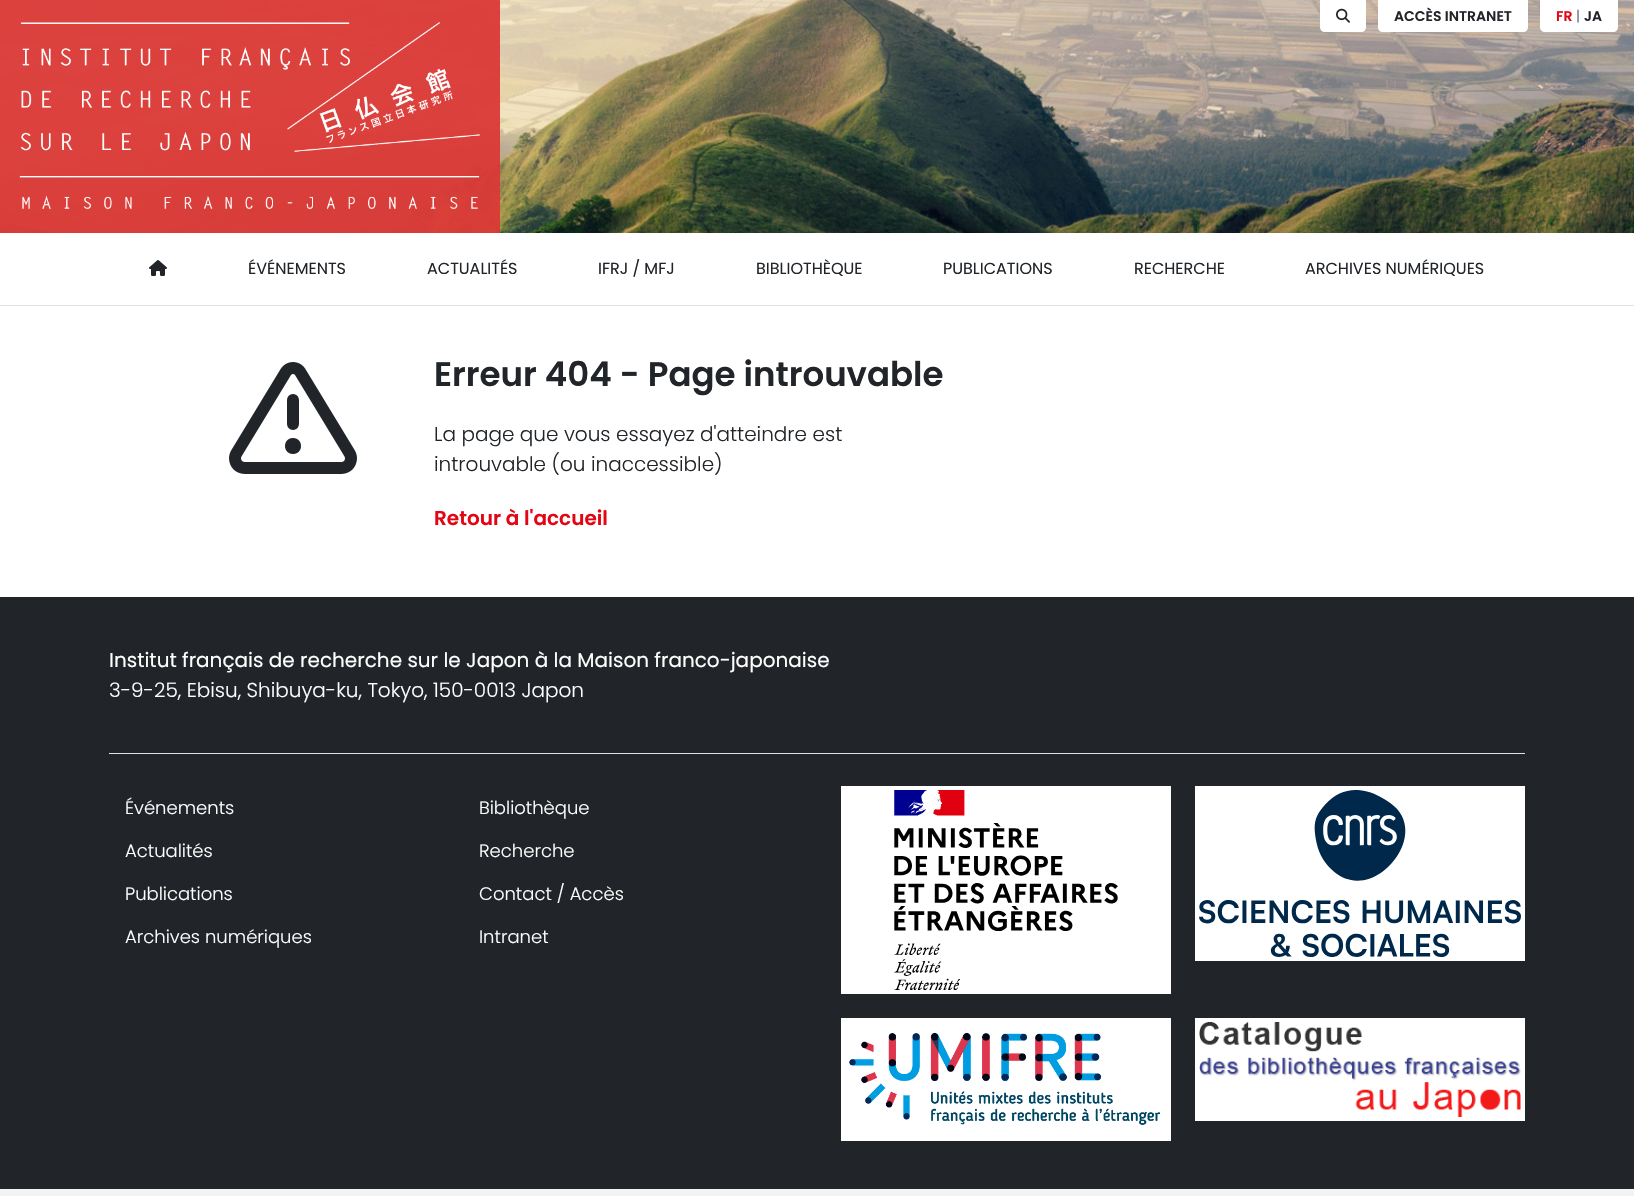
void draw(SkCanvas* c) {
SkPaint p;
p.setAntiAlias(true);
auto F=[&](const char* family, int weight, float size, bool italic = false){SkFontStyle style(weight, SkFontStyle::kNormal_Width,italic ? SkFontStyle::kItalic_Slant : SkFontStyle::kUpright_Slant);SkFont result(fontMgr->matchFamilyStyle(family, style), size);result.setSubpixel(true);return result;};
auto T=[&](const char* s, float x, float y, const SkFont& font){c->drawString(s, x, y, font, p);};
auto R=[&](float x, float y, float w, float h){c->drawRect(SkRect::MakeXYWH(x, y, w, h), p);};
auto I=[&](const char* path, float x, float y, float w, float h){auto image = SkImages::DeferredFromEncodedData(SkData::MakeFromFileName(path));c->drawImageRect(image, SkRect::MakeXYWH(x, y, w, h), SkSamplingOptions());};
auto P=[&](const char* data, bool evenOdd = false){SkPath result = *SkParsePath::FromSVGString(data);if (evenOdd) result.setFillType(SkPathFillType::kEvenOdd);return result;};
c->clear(0xffffffff);
I("1.png",0,0,1634,233);
p.setColor(0xf2da3836);
R(0,0,500,233);
I("2.png",19,22,461,188);
p.setColor(0xffffffff);
c->drawPath(P("M1320 0h46v27c0 3-2 5-5 5h-36c-3 0-5-2-5-5z"),p);
I("3.png",1336,8,14,15);
c->drawPath(P("M1378 0h150v27c0 3-2 5-5 5h-140c-3 0-5-2-5-5z"),p);
auto f1 = F("Poppins",600,14);
p.setColor(0xff212529);
T("ACCÈS INTRANET",1394,21,f1);
p.setColor(0xffffffff);
c->drawPath(P("M1540 0h78v27c0 3-2 5-5 5h-68c-3 0-5-2-5-5z"),p);
p.setColor(0xffe30513);
T("FR",1556,21,f1);
auto f2 = F("Poppins",400,14);
p.setColor(0xff6c757d);
T("|",1576,21,f2);
p.setColor(0xff212529);
T("JA",1584,21,f1);
I("4.png",149,260,18,16);
auto f3 = F("Poppins",400,16);
T("ÉVÉNEMENTS",248,274,f3);
T("ACTUALITÉS",427,274,f3);
T("IFRJ / MFJ",598,274,f3);
T("BIBLIOTHÈQUE",756,274,f3);
T("PUBLICATIONS",943,274,f3);
T("RECHERCHE",1134,274,f3);
T("ARCHIVES NUMÉRIQUES",1305,274,f3);
p.setColor(0xffdee2e6);
R(0,305,1634,1);
I("5.png",229,362,128,112);
auto f4 = F("Poppins",600,34);
p.setColor(0xff212529);
T("Erreur 404 - Page introuvable",434,386,f4);
auto f5 = F("Poppins",300,20);
T("La page que vous essayez d'atteindre est",434,441,f5);
T("introuvable (ou inaccessible)",434,471,f5);
auto f6 = F("Poppins",600,20);
p.setColor(0xffe30513);
T("Retour à l'accueil",434,525,f6);
p.setColor(0xff212529);
R(0,597,1634,592);
p.setColor(0xffdee2e6);
R(109,753,1416,1);
auto f7 = F("Poppins",400,20);
p.setColor(0xffffffff);
T("Institut français de recherche sur le Japon à la Maison franco-japonaise",109,667,f7);
T("3-9-25, Ebisu, Shibuya-ku, Tokyo, 150-0013 Japon",109,697,f5);
auto f8 = F("Poppins",300,18);
T("Événements",125,814,f8);
T("Actualités",125,857,f8);
T("Publications",125,900,f8);
T("Archives numériques",125,943,f8);
T("Bibliothèque",479,814,f8);
T("Recherche",479,857,f8);
T("Contact / Accès",479,900,f8);
T("Intranet",479,943,f8);
R(841,786,330,208);
I("6.png",894,790,224,200);
R(1195,786,330,175);
I("7.png",1199,790,322,167);
R(841,1018,330,123);
I("8.png",849,1032,311,93);
R(1195,1018,330,103);
I("9.png",1199,1022,322,95);
p.setColor(0xfff3f3f3);
R(0,1189,1634,7);
}
